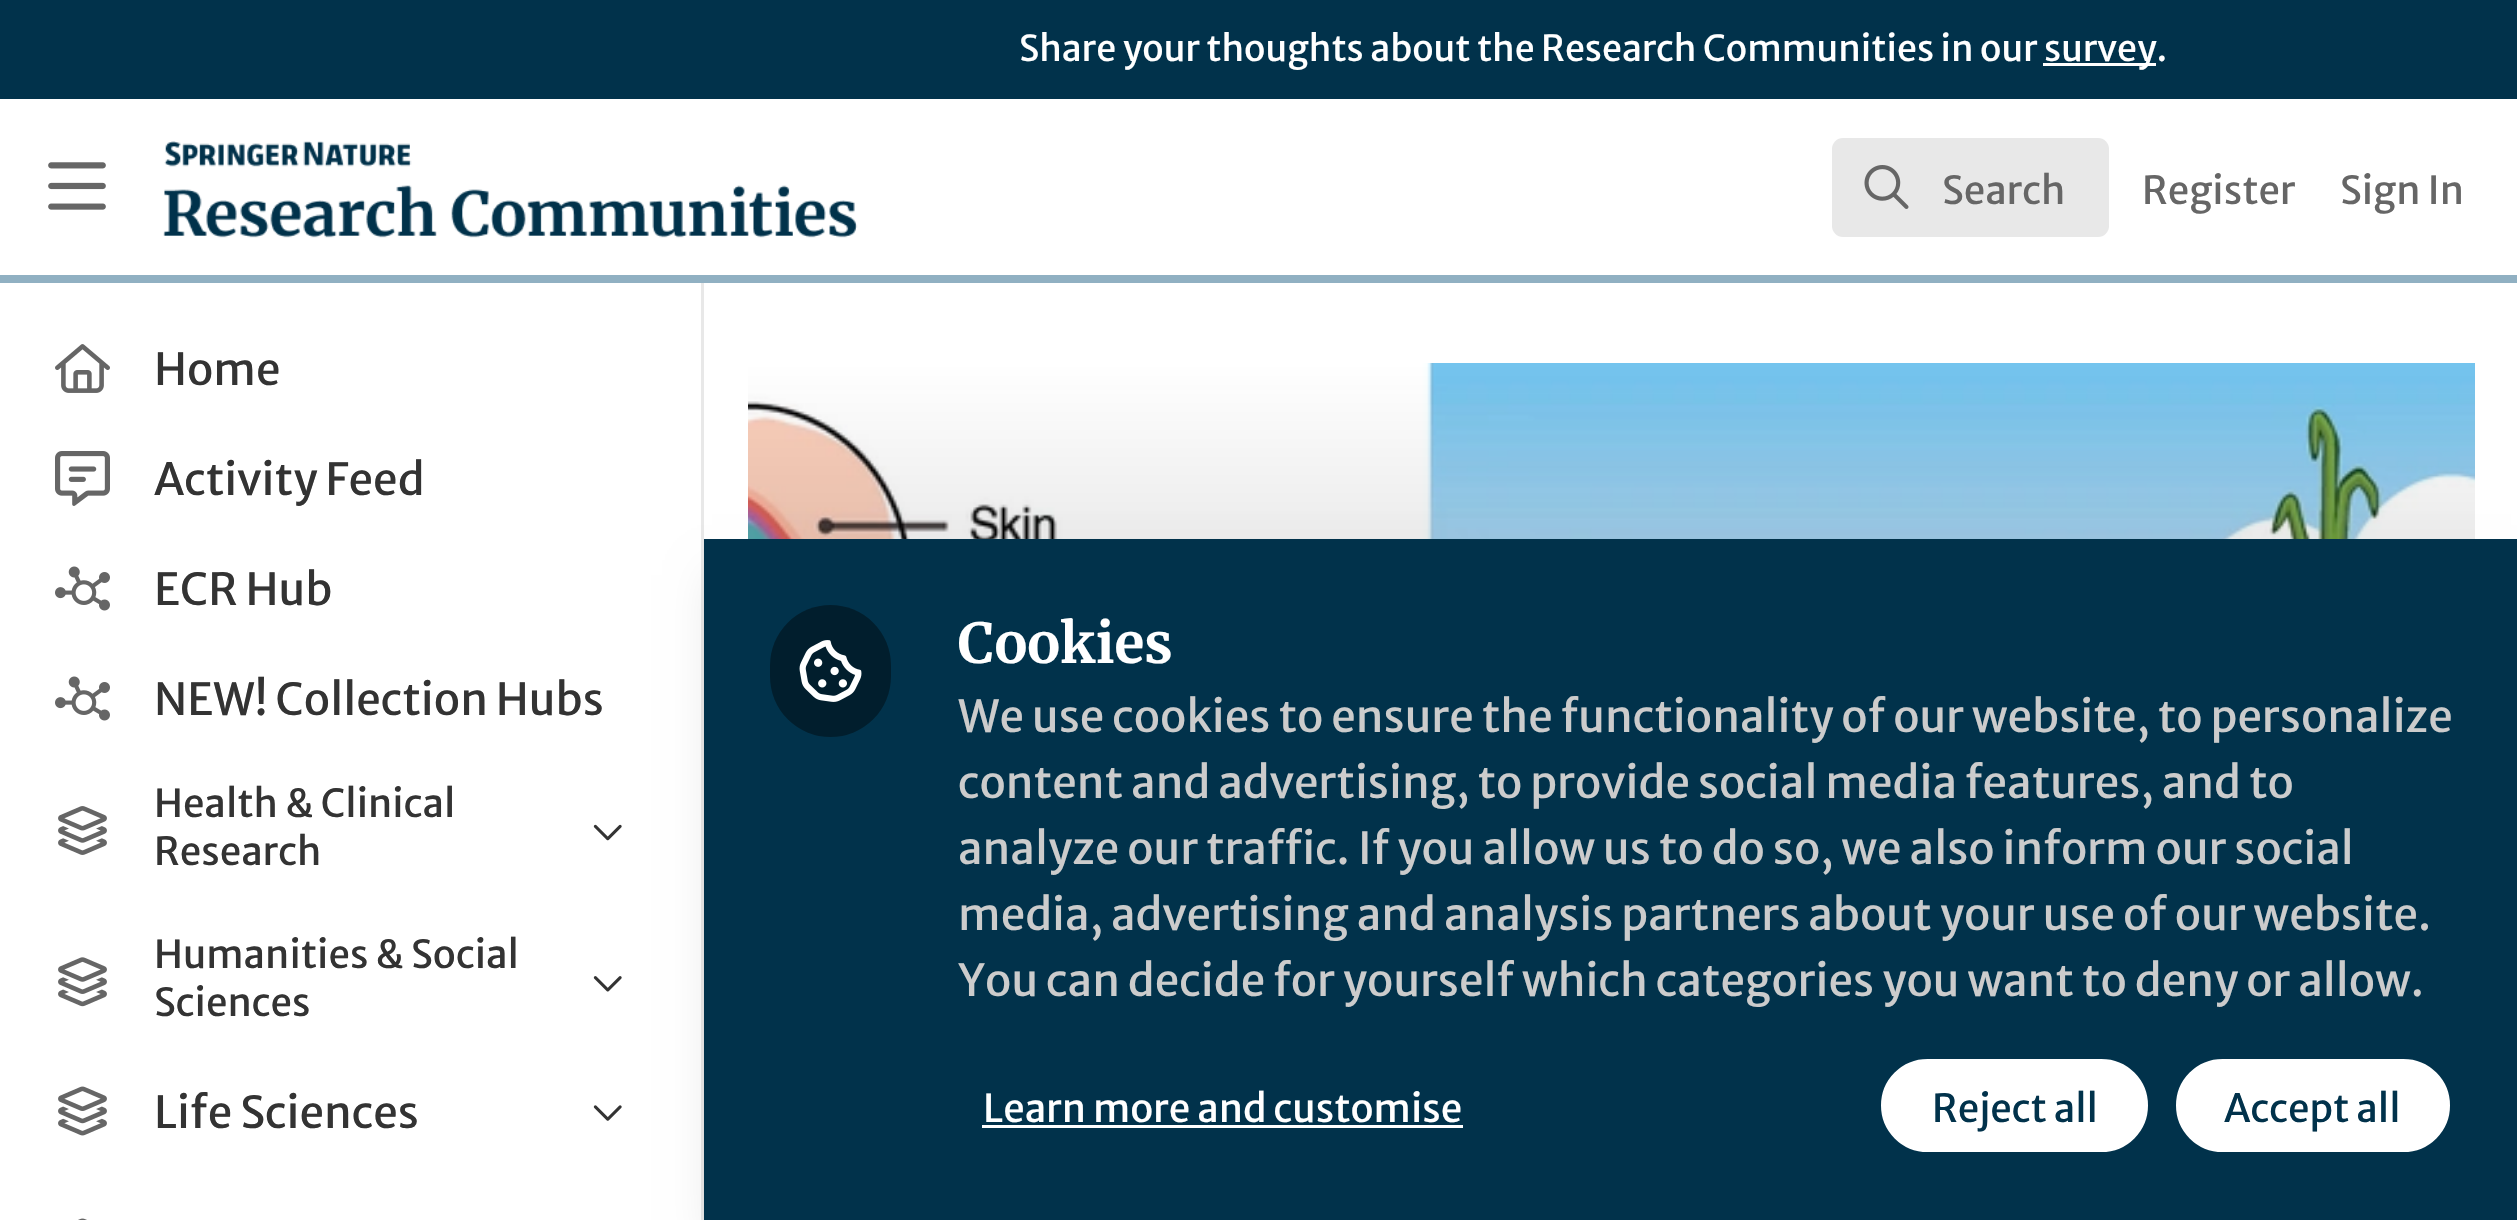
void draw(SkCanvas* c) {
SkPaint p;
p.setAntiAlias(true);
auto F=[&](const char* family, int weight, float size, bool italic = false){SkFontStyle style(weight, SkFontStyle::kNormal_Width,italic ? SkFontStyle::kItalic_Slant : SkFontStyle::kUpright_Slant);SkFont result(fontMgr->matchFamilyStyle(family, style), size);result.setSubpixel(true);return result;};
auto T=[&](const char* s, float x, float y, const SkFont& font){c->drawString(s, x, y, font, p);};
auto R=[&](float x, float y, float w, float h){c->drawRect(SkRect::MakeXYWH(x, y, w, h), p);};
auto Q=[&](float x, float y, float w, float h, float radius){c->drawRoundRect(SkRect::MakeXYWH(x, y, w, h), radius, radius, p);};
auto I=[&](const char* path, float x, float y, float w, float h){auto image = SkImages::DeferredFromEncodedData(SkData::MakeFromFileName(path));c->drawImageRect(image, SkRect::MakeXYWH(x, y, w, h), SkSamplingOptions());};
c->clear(0xffffffff);
p.setColor(0xff01324b);
R(0,0,2517,99);
auto f1 = F("Merriweather Sans",400,35.75);
p.setColor(0xffffffff);
T("Share your thoughts about the Research Communities in our",1019,61,f1);
R(2043,63,113,3);
T("survey.",2044,61,f1);
p.setColor(0xffe8e8e8);
R(701,275,3,945);
p.setColor(0xff90b0c2);
R(0,275,2517,8);
I("1.png",48,162,58,48);
I("2.png",163,141,695,97);
p.setColor(0xffe8e8e8);
Q(1832,138,277,99,11);
I("3.png",1864,165,45,44);
auto f2 = F("Merriweather Sans",400,38.5);
p.setColor(0xff666666);
T("Search",1942,204,f2);
T("Register",2142,204,f2);
T("Sign In",2340,204,f2);
I("4.png",55,344,55,49);
auto f3 = F("Merriweather Sans",400,44);
p.setColor(0xff333333);
T("Home",154,385,f3);
I("5.png",55,451,55,55);
T("Activity Feed",154,495,f3);
I("6.png",55,566,55,45);
T("ECR Hub",154,605,f3);
I("6.png",55,676,55,45);
T("NEW! Collection Hubs",154,715,f3);
I("7.png",58,806,49,49);
T("Health & Clinical",154,817,f2);
T("Research",154,865,f2);
I("8.png",593,824,29,17);
I("9.png",58,957,49,50);
T("Humanities & Social",154,968,f2);
T("Sciences",154,1016,f2);
I("10.png",593,976,29,16);
I("11.png",58,1086,49,50);
T("Life Sciences",154,1128,f3);
I("12.png",593,1105,29,16);
I("13.png",78,1218,9,2);
I("14.png",748,363,1727,176);
p.setColor(0x1a000000);
p.setMaskFilter(SkMaskFilter::MakeBlur(kNormal_SkBlurStyle, 20.5));
c->drawRect(SkRect::MakeXYWH(712,575,1799,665),p);
p.setMaskFilter(nullptr);
p.setColor(0xff01324b);
R(704,539,1813,681);
p.setColor(0xff011e2d);
Q(770,605,121,132,60.5);
I("15.png",799,640,63,62);
auto f4 = F("Merriweather",700,55);
p.setColor(0xffffffff);
T("Cookies",958,663,f4);
p.setColor(0xffcccccc);
T("We use cookies to ensure the functionality of our website, to personalize",958,732,f3);
T("content and advertising, to provide social media features, and to",958,798,f3);
T("analyze our traffic. If you allow us to do so, we also inform our social",958,864,f3);
T("media, advertising and analysis partners about your use of our website.",958,930,f3);
T("You can decide for yourself which categories you want to deny or allow.",958,996,f3);
p.setColor(0xffffffff);
T("Learn more and customise",983,1122,f2);
R(982,1125,481,3);
c->drawRoundRect(SkRect::MakeXYWH(1879.5,1057.5,270,96),48,48,p);
p.setStroke(true);
p.setStrokeWidth(3);
p.setColor(0xff01324b);
c->drawRoundRect(SkRect::MakeXYWH(1879.5,1057.5,270,96),48,48,p);
p.setStroke(false);
T("Reject all",1932,1122,f2);
p.setColor(0xffffffff);
c->drawRoundRect(SkRect::MakeXYWH(2174.5,1057.5,277,96),48,48,p);
p.setStroke(true);
p.setColor(0xff01324b);
c->drawRoundRect(SkRect::MakeXYWH(2174.5,1057.5,277,96),48,48,p);
p.setStroke(false);
T("Accept all",2224,1122,f2);
}
